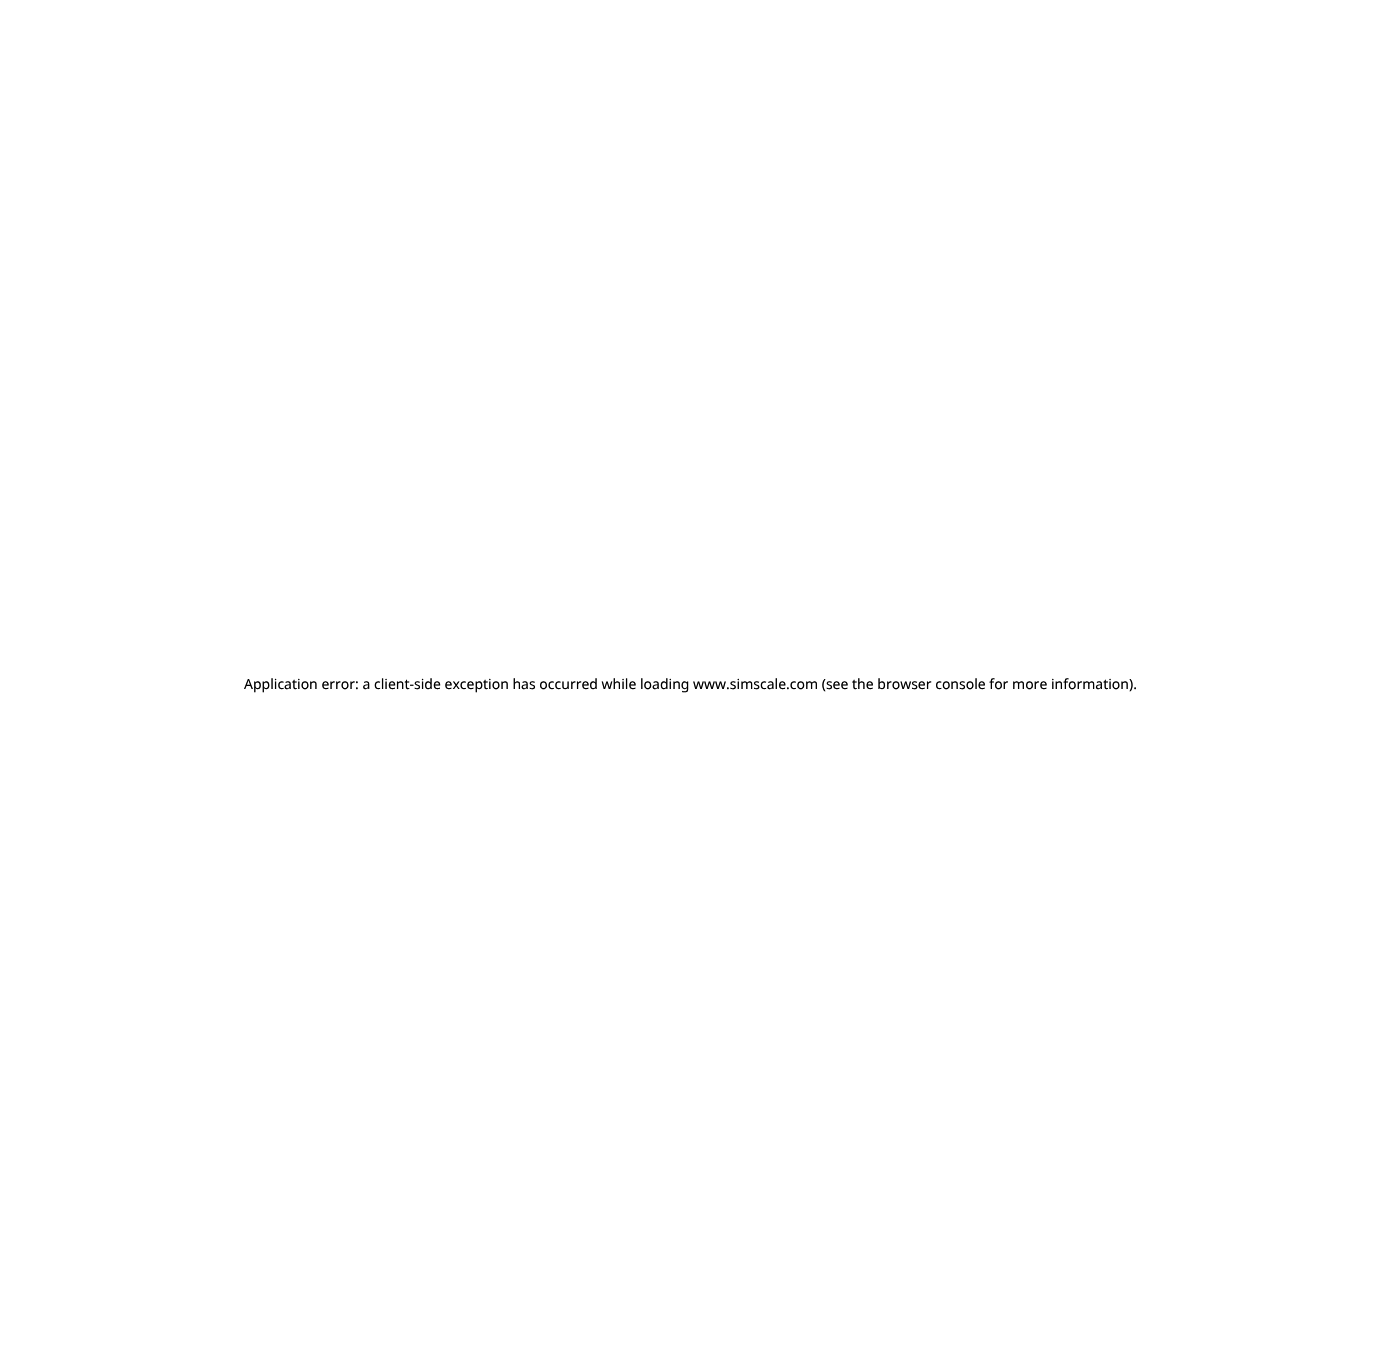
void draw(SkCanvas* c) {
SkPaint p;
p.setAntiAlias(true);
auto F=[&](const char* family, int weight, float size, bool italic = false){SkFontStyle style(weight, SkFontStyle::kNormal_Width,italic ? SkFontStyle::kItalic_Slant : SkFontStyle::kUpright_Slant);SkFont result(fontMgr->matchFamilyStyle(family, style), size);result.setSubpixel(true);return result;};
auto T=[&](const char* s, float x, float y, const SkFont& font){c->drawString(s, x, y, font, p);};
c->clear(0xffffffff);
auto f1 = F("Noto Sans",400,14);
p.setColor(0xff000000);
T("Application error: a client-side exception has occurred while loading www.simscale.com (see the browser console for more information).",244,689,f1);
}
